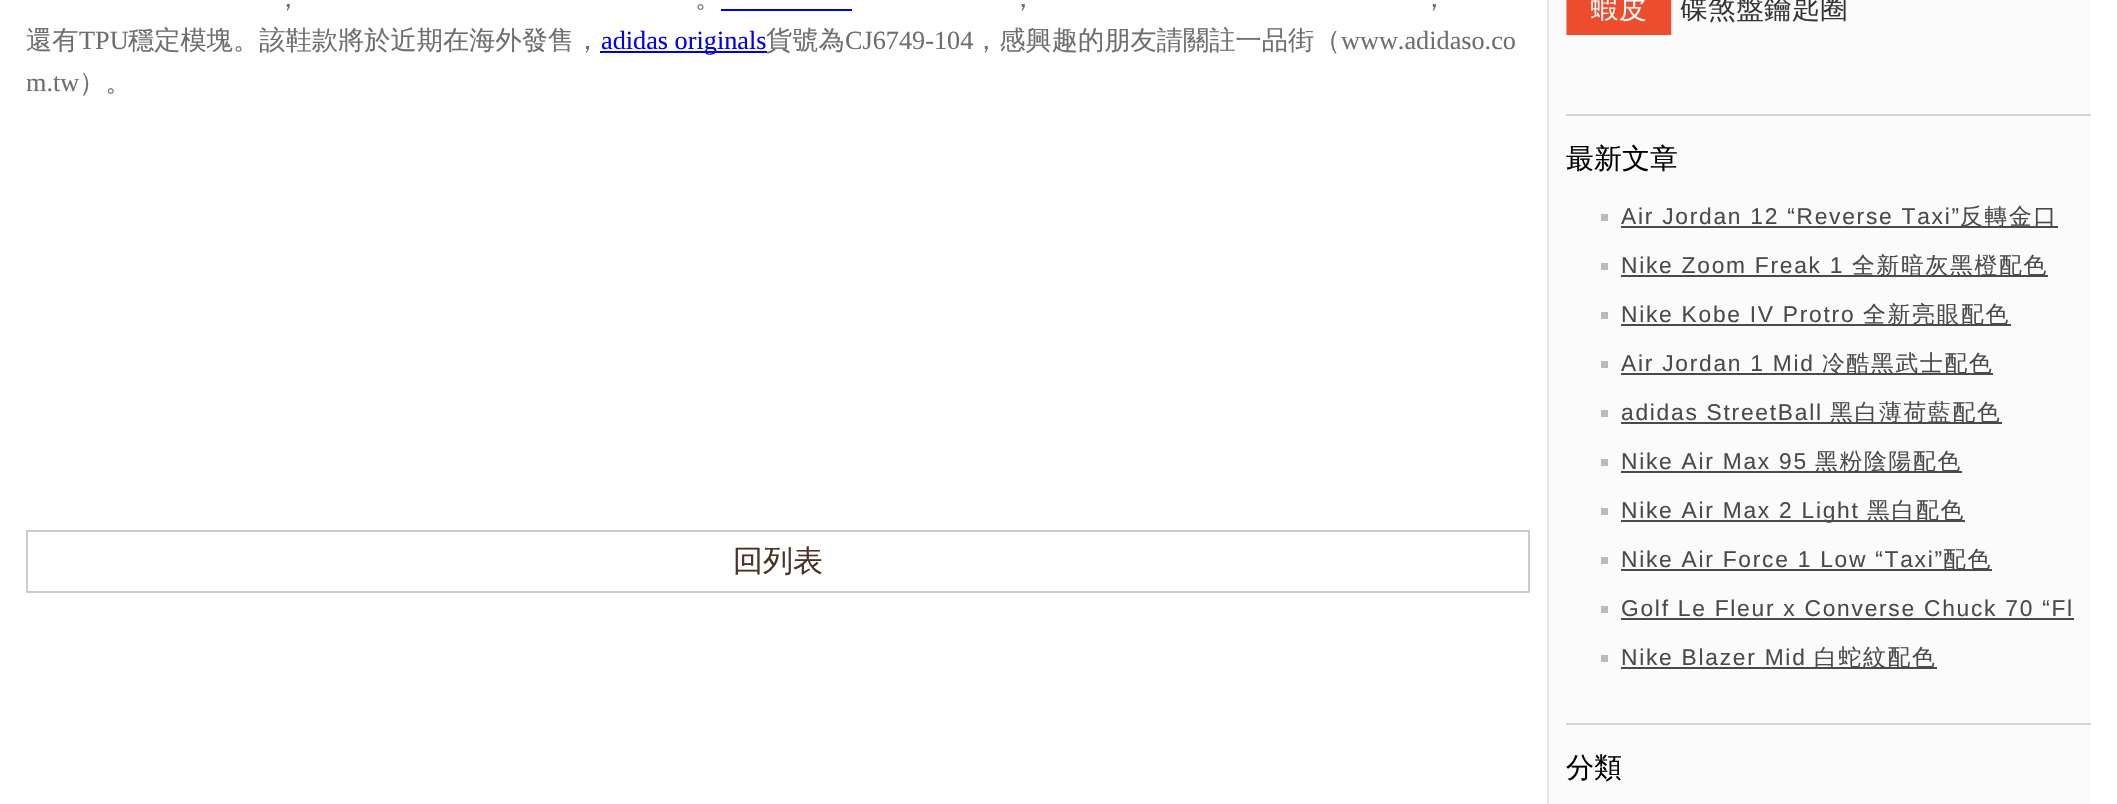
void draw(SkCanvas* c) {
SkPaint p;
p.setAntiAlias(true);
auto F=[&](const char* family, int weight, float size, bool italic = false){SkFontStyle style(weight, SkFontStyle::kNormal_Width,italic ? SkFontStyle::kItalic_Slant : SkFontStyle::kUpright_Slant);SkFont result(fontMgr->matchFamilyStyle(family, style), size);result.setSubpixel(true);return result;};
auto T=[&](const char* s, float x, float y, const SkFont& font){c->drawString(s, x, y, font, p);};
auto L=[&](const char* s, float x, float y, const SkFont& font, const SkPaint& ink, float letter, float word){std::vector<SkGlyphID> glyphs(font.countText(s, strlen(s), SkTextEncoding::kUTF8));std::vector<float> xs(glyphs.size());font.textToGlyphs(s, strlen(s), SkTextEncoding::kUTF8, glyphs);font.getXPos(glyphs, xs, x);float extra = 0;for (size_t i = 0; i < glyphs.size(); i++) {xs[i] += extra;extra += letter + word * (glyphs[i] == font.unicharToGlyph(' '));}c->drawTextBlob(SkTextBlob::MakeFromPosHGlyphs(glyphs, xs, y, font), 0, 0, ink);};
auto R=[&](float x, float y, float w, float h){c->drawRect(SkRect::MakeXYWH(x, y, w, h), p);};
auto I=[&](const char* path, float x, float y, float w, float h){auto image = SkImages::DeferredFromEncodedData(SkData::MakeFromFileName(path));c->drawImageRect(image, SkRect::MakeXYWH(x, y, w, h), SkSamplingOptions());};
c->clear(0xffffffff);
p.setColor(0xffe6e6e6);
R(1547,0,2,804);
auto f1 = F("WenQuanYi Zen Hei",500,26.25);
p.setColor(0xff706e6c);
T("，",275,7,f1);
T("。",695,7,f1);
p.setColor(0xff0000ee);
R(721,9,131,2);
p.setColor(0xff706e6c);
T("，",1010,7,f1);
T("，",1421,7,f1);
T("還有",26,49,f1);
auto f2 = F("Liberation Serif",400,26.25);
T("TPU",79,49,f2);
T("穩定模塊。該鞋款將於近期在海外發售，",128,49,f1);
p.setColor(0xff0000ee);
R(600,51,167,2);
T("adidas originals",601,49,f2);
p.setColor(0xff706e6c);
T("貨號為",766,49,f1);
T("CJ6749-104",845,49,f2);
T("，感興趣的朋友請關註一品街（",973,49,f1);
T("www.adidaso.co",1341,49,f2);
T("m.tw",26,91,f2);
T("）。",79,91,f1);
p.setStroke(true);
p.setStrokeWidth(2);
p.setColor(0xffcccccc);
c->drawRect(SkRect::MakeXYWH(27,531,1502,61),p);
auto f3 = F("WenQuanYi Zen Hei",500,30);
p.setStroke(false);
p.setColor(0xff4d3126);
T("回列表",733,571,f3);
p.setColor(0xfffbfbfb);
R(1549,0,542,804);
p.setColor(0xffd5d5d6);
R(1566,114,525,2);
I("1.png",1566,0,280,36);
R(1566,723,525,2);
auto f4 = F("WenQuanYi Zen Hei",500,28);
p.setColor(0xff000000);
T("最新文章",1566,168,f4);
p.setColor(0xffbbbbbb);
R(1601,214,7,7);
auto f5 = F("Liberation Sans",400,22.75);
p.setColor(0xff4d494a);
L("Air Jordan 12 “Reverse Taxi”",1621,224,f5,p,1.75,0);
R(1621,226,437,2);
auto f6 = F("WenQuanYi Zen Hei",500,22.75);
L("反轉金口",1960,224,f6,p,1.75,0);
p.setColor(0xffbbbbbb);
R(1601,263,7,7);
p.setColor(0xff4d494a);
L("Nike Zoom Freak 1",1621,273,f5,p,1.75,0);
R(1621,275,427,2);
L("全新暗灰黑橙配色",1852,273,f6,p,1.75,0);
p.setColor(0xffbbbbbb);
R(1601,312,7,7);
p.setColor(0xff4d494a);
L("Nike Kobe IV Protro",1621,322,f5,p,1.75,0);
R(1621,324,390,2);
L("全新亮眼配色",1863,322,f6,p,1.75,0);
p.setColor(0xffbbbbbb);
R(1601,361,7,7);
p.setColor(0xff4d494a);
L("Air Jordan 1 Mid",1621,371,f5,p,1.75,0);
R(1621,373,372,2);
L("冷酷黑武士配色",1822,371,f6,p,1.75,0);
p.setColor(0xffbbbbbb);
R(1601,410,7,7);
p.setColor(0xff4d494a);
L("adidas StreetBall",1621,420,f5,p,1.75,0);
R(1621,422,381,2);
L("黑白薄荷藍配色",1830,420,f6,p,1.75,0);
p.setColor(0xffbbbbbb);
R(1601,459,7,7);
p.setColor(0xff4d494a);
L("Nike Air Max 95",1621,469,f5,p,1.75,0);
R(1621,471,341,2);
L("黑粉陰陽配色",1815,469,f6,p,1.75,0);
p.setColor(0xffbbbbbb);
R(1601,508,7,7);
p.setColor(0xff4d494a);
R(1621,520,344,2);
L("Nike Air Max 2 Light",1621,518,f5,p,1.75,0);
L("黑白配色",1867,518,f6,p,1.75,0);
p.setColor(0xffbbbbbb);
R(1601,557,7,7);
p.setColor(0xff4d494a);
L("Nike Air Force 1 Low “Taxi”",1621,567,f5,p,1.75,0);
R(1621,569,371,2);
L("配色",1943,567,f6,p,1.75,0);
p.setColor(0xffbbbbbb);
R(1601,606,7,7);
p.setColor(0xff4d494a);
L("Golf Le Fleur x Converse Chuck 70 “Fl",1621,616,f5,p,1.75,0);
R(1621,618,453,2);
p.setColor(0xffbbbbbb);
R(1601,655,7,7);
p.setColor(0xff4d494a);
L("Nike Blazer Mid",1621,665,f5,p,1.75,0);
R(1621,667,316,2);
L("白蛇紋配色",1814,665,f6,p,1.75,0);
p.setColor(0xff000000);
T("分類",1566,777,f4);
}
